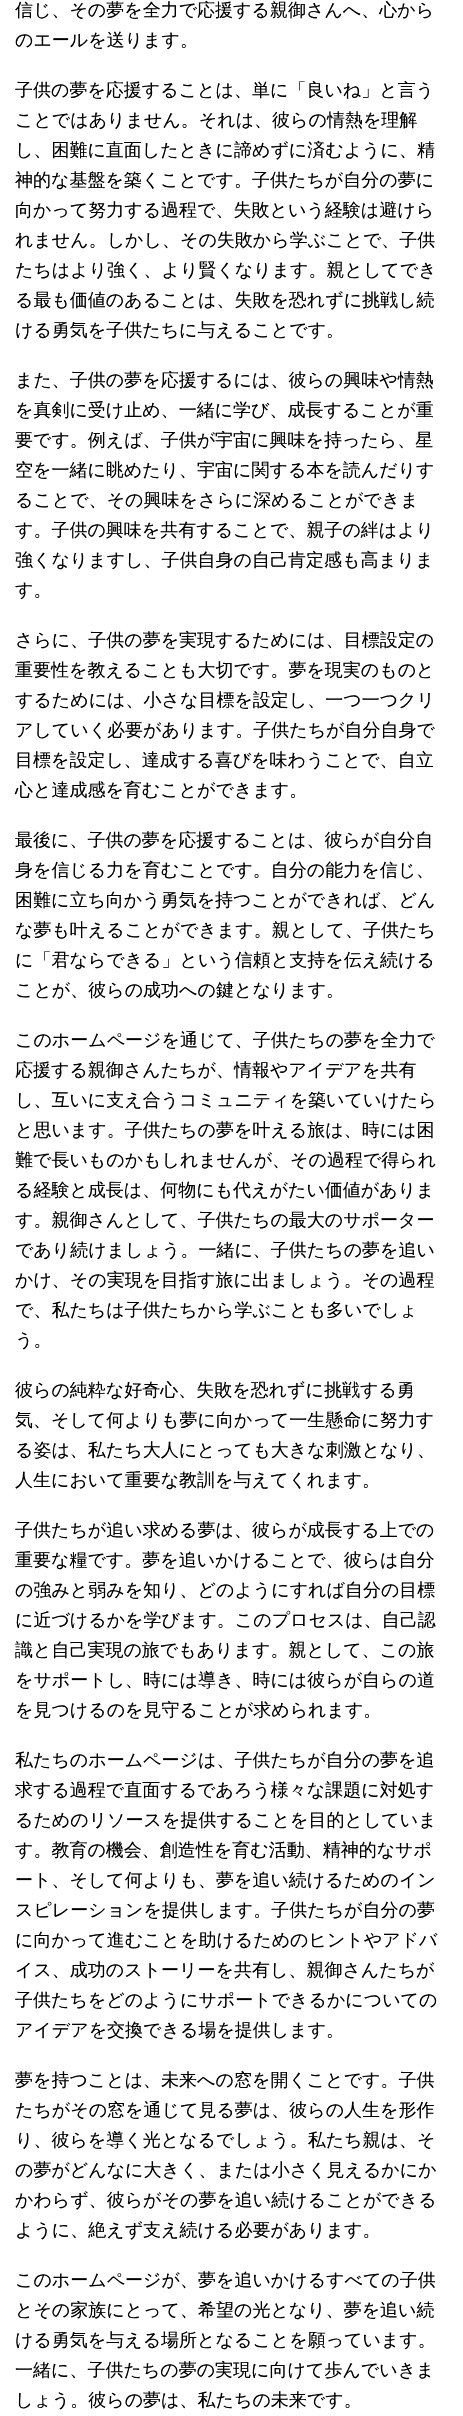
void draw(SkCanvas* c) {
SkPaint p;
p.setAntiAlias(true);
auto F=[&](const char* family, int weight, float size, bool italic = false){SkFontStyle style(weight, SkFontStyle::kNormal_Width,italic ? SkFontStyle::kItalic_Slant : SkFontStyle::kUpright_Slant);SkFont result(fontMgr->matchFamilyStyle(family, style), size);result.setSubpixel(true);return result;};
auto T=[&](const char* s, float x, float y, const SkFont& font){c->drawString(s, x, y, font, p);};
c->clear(0xffffffff);
auto f1 = F("WenQuanYi Zen Hei",500,18);
p.setColor(0xff000000);
T("信じ、その夢を全力で応援する親御さんへ、心から",15,16,f1);
T("のエールを送ります。",15,46,f1);
T("子供の夢を応援することは、単に「良いね」と言う",15,96,f1);
T("ことではありません。それは、彼らの情熱を理解",15,126,f1);
T("し、困難に直面したときに諦めずに済むように、精",15,156,f1);
T("神的な基盤を築くことです。子供たちが自分の夢に",15,186,f1);
T("向かって努力する過程で、失敗という経験は避けら",15,216,f1);
T("れません。しかし、その失敗から学ぶことで、子供",15,246,f1);
T("たちはより強く、より賢くなります。親としてでき",15,276,f1);
T("る最も価値のあることは、失敗を恐れずに挑戦し続",15,306,f1);
T("ける勇気を子供たちに与えることです。",15,336,f1);
T("また、子供の夢を応援するには、彼らの興味や情熱",15,386,f1);
T("を真剣に受け止め、一緒に学び、成長することが重",15,416,f1);
T("要です。例えば、子供が宇宙に興味を持ったら、星",15,446,f1);
T("空を一緒に眺めたり、宇宙に関する本を読んだりす",15,476,f1);
T("ることで、その興味をさらに深めることができま",15,506,f1);
T("す。子供の興味を共有することで、親子の絆はより",15,536,f1);
T("強くなりますし、子供自身の自己肯定感も高まりま",15,566,f1);
T("す。",15,596,f1);
T("さらに、子供の夢を実現するためには、目標設定の",15,646,f1);
T("重要性を教えることも大切です。夢を現実のものと",15,676,f1);
T("するためには、小さな目標を設定し、一つ一つクリ",15,706,f1);
T("アしていく必要があります。子供たちが自分自身で",15,736,f1);
T("目標を設定し、達成する喜びを味わうことで、自立",15,766,f1);
T("心と達成感を育むことができます。",15,796,f1);
T("最後に、子供の夢を応援することは、彼らが自分自",15,846,f1);
T("身を信じる力を育むことです。自分の能力を信じ、",15,876,f1);
T("困難に立ち向かう勇気を持つことができれば、どん",15,906,f1);
T("な夢も叶えることができます。親として、子供たち",15,936,f1);
T("に「君ならできる」という信頼と支持を伝え続ける",15,966,f1);
T("ことが、彼らの成功への鍵となります。",15,996,f1);
T("このホームページを通じて、子供たちの夢を全力で",15,1046,f1);
T("応援する親御さんたちが、情報やアイデアを共有",15,1076,f1);
T("し、互いに支え合うコミュニティを築いていけたら",15,1106,f1);
T("と思います。子供たちの夢を叶える旅は、時には困",15,1136,f1);
T("難で長いものかもしれませんが、その過程で得られ",15,1166,f1);
T("る経験と成長は、何物にも代えがたい価値がありま",15,1196,f1);
T("す。親御さんとして、子供たちの最大のサポーター",15,1226,f1);
T("であり続けましょう。一緒に、子供たちの夢を追い",15,1256,f1);
T("かけ、その実現を目指す旅に出ましょう。その過程",15,1286,f1);
T("で、私たちは子供たちから学ぶことも多いでしょ",15,1316,f1);
T("う。",15,1346,f1);
T("彼らの純粋な好奇心、失敗を恐れずに挑戦する勇",15,1396,f1);
T("気、そして何よりも夢に向かって一生懸命に努力す",15,1426,f1);
T("る姿は、私たち大人にとっても大きな刺激となり、",15,1456,f1);
T("人生において重要な教訓を与えてくれます。",15,1486,f1);
T("子供たちが追い求める夢は、彼らが成長する上での",15,1536,f1);
T("重要な糧です。夢を追いかけることで、彼らは自分",15,1566,f1);
T("の強みと弱みを知り、どのようにすれば自分の目標",15,1596,f1);
T("に近づけるかを学びます。このプロセスは、自己認",15,1626,f1);
T("識と自己実現の旅でもあります。親として、この旅",15,1656,f1);
T("をサポートし、時には導き、時には彼らが自らの道",15,1686,f1);
T("を見つけるのを見守ることが求められます。",15,1716,f1);
T("私たちのホームページは、子供たちが自分の夢を追",15,1766,f1);
T("求する過程で直面するであろう様々な課題に対処す",15,1796,f1);
T("るためのリソースを提供することを目的としていま",15,1826,f1);
T("す。教育の機会、創造性を育む活動、精神的なサポ",15,1856,f1);
T("ート、そして何よりも、夢を追い続けるためのイン",15,1886,f1);
T("スピレーションを提供します。子供たちが自分の夢",15,1916,f1);
T("に向かって進むことを助けるためのヒントやアドバ",15,1946,f1);
T("イス、成功のストーリーを共有し、親御さんたちが",15,1976,f1);
T("子供たちをどのようにサポートできるかについての",15,2006,f1);
T("アイデアを交換できる場を提供します。",15,2036,f1);
T("夢を持つことは、未来への窓を開くことです。子供",15,2086,f1);
T("たちがその窓を通じて見る夢は、彼らの人生を形作",15,2116,f1);
T("り、彼らを導く光となるでしょう。私たち親は、そ",15,2146,f1);
T("の夢がどんなに大きく、または小さく見えるかにか",15,2176,f1);
T("かわらず、彼らがその夢を追い続けることができる",15,2206,f1);
T("ように、絶えず支え続ける必要があります。",15,2236,f1);
T("このホームページが、夢を追いかけるすべての子供",15,2286,f1);
T("とその家族にとって、希望の光となり、夢を追い続",15,2316,f1);
T("ける勇気を与える場所となることを願っています。",15,2346,f1);
T("一緒に、子供たちの夢の実現に向けて歩んでいきま",15,2376,f1);
T("しょう。彼らの夢は、私たちの未来です。",15,2406,f1);
}
